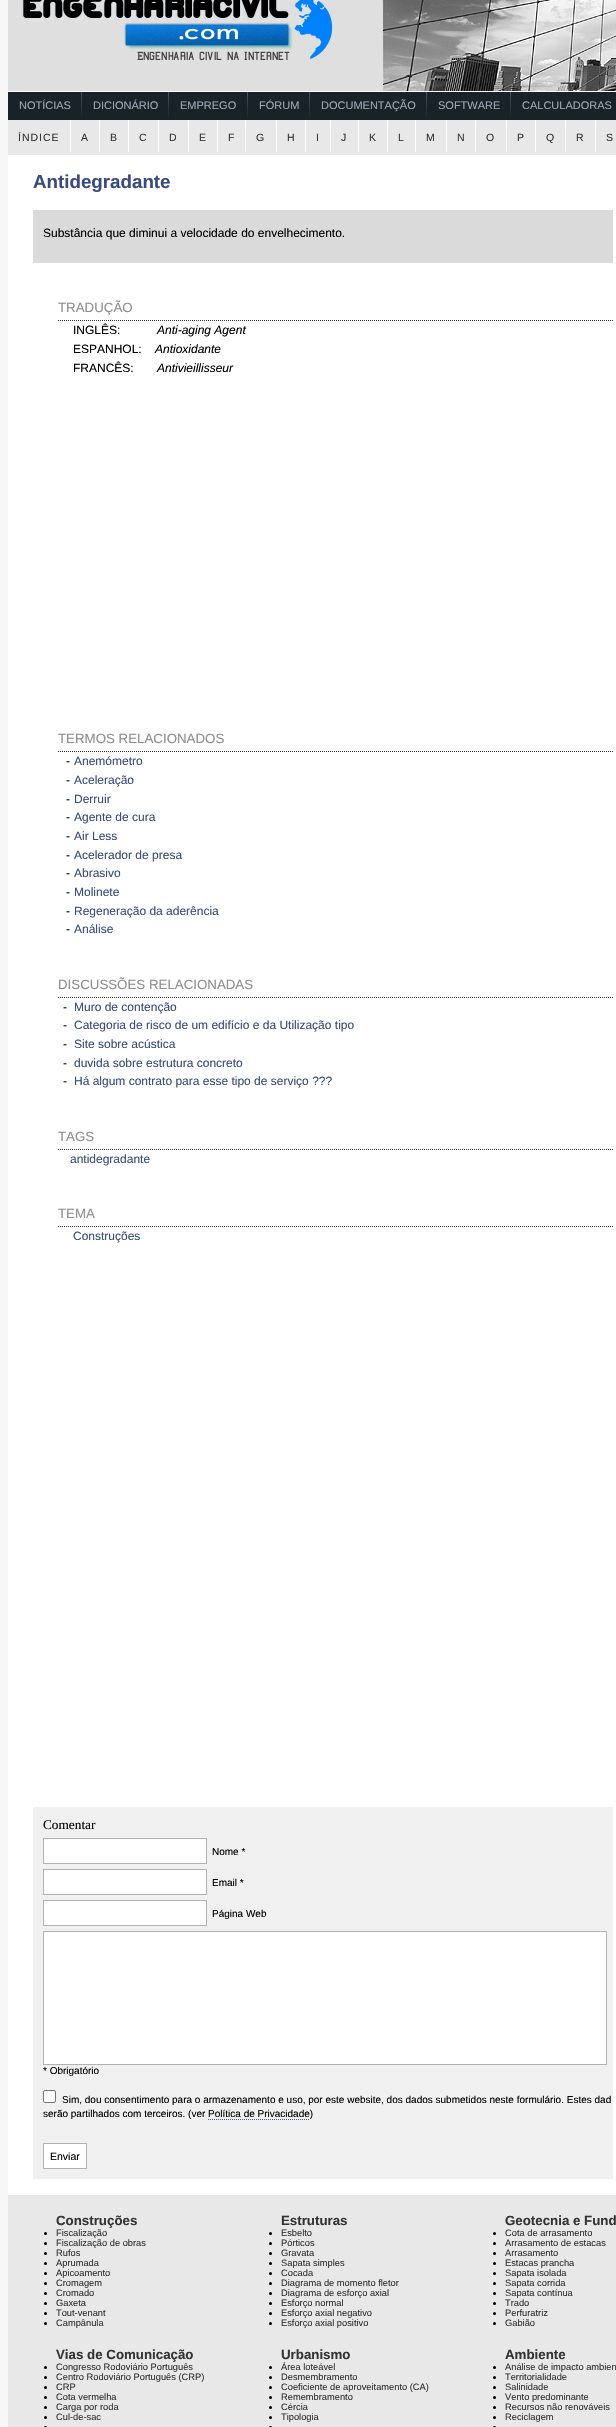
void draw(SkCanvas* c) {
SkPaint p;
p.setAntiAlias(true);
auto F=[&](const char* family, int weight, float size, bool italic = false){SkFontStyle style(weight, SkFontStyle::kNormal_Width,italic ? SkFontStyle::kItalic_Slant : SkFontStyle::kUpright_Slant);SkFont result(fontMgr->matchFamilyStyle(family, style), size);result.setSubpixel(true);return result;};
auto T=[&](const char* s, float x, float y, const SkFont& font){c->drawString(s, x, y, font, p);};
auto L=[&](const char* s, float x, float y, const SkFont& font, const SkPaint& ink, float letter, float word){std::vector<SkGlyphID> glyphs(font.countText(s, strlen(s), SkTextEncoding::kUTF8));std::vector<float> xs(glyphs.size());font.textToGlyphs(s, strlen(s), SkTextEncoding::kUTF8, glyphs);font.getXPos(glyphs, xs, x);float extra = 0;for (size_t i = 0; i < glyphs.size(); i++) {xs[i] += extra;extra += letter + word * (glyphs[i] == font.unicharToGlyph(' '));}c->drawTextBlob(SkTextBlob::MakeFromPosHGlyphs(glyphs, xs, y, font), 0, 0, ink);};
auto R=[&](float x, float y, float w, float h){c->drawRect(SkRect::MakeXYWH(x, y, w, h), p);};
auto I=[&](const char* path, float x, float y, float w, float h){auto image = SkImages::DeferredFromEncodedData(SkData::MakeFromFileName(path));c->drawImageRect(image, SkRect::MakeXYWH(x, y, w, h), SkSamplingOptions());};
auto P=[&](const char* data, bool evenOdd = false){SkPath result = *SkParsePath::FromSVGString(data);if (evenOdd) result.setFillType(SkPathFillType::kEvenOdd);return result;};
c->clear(0xffffffff);
p.setColor(0xfff7f7f7);
R(0,0,8,2427);
I("1.png",8,0,608,91);
p.setColor(0xff192227);
R(8,92,608,28);
I("2.png",81,92,1,25);
auto f1 = F("Liberation Sans",400,11);
p.setColor(0xff9baab5);
T("NOTÍCIAS",19,109,f1);
I("2.png",168,92,1,25);
T("DICIONÁRIO",93,109,f1);
I("2.png",247,92,1,25);
T("EMPREGO",180,109,f1);
I("2.png",309,92,1,25);
T("FÓRUM",259,109,f1);
I("2.png",426,92,1,25);
T("DOCUMENTAÇÃO",321,109,f1);
I("2.png",510,92,1,25);
T("SOFTWARE",438,109,f1);
T("CALCULADORAS",522,109,f1);
p.setColor(0xffe8e8e8);
R(8,120,608,35);
p.setColor(0xffffffff);
R(70,120,1,32);
auto f2 = F("Liberation Sans",400,10.5);
p.setColor(0xff333333);
L("ÍNDICE",18,141,f2,p,1,0);
p.setColor(0xffffffff);
R(99,120,1,32);
p.setColor(0xff333333);
L("A",81,141,f2,p,1,0);
p.setColor(0xffffffff);
R(128,120,1,32);
p.setColor(0xff333333);
L("B",110,141,f2,p,1,0);
p.setColor(0xffffffff);
R(158,120,1,32);
p.setColor(0xff333333);
L("C",139,141,f2,p,1,0);
p.setColor(0xffffffff);
R(188,120,1,32);
p.setColor(0xff333333);
L("D",169,141,f2,p,1,0);
p.setColor(0xffffffff);
R(217,120,1,32);
p.setColor(0xff333333);
L("E",199,141,f2,p,1,0);
p.setColor(0xffffffff);
R(245,120,1,32);
p.setColor(0xff333333);
L("F",228,141,f2,p,1,0);
p.setColor(0xffffffff);
R(276,120,1,32);
p.setColor(0xff333333);
L("G",256,141,f2,p,1,0);
p.setColor(0xffffffff);
R(305,120,1,32);
p.setColor(0xff333333);
L("H",287,141,f2,p,1,0);
p.setColor(0xffffffff);
R(330,120,1,32);
p.setColor(0xff333333);
L("I",316,141,f2,p,1,0);
p.setColor(0xffffffff);
R(358,120,1,32);
p.setColor(0xff333333);
L("J",341,141,f2,p,1,0);
p.setColor(0xffffffff);
R(387,120,1,32);
p.setColor(0xff333333);
L("K",369,141,f2,p,1,0);
p.setColor(0xffffffff);
R(415,120,1,32);
p.setColor(0xff333333);
L("L",398,141,f2,p,1,0);
p.setColor(0xffffffff);
R(446,120,1,32);
p.setColor(0xff333333);
L("M",426,141,f2,p,1,0);
p.setColor(0xffffffff);
R(475,120,1,32);
p.setColor(0xff333333);
L("N",457,141,f2,p,1,0);
p.setColor(0xffffffff);
R(506,120,1,32);
p.setColor(0xff333333);
L("O",486,141,f2,p,1,0);
p.setColor(0xffffffff);
R(535,120,1,32);
p.setColor(0xff333333);
L("P",517,141,f2,p,1,0);
p.setColor(0xffffffff);
R(565,120,1,32);
p.setColor(0xff333333);
L("Q",546,141,f2,p,1,0);
p.setColor(0xffffffff);
R(595,120,1,32);
p.setColor(0xff333333);
L("R",576,141,f2,p,1,0);
L("S",606,141,f2,p,1,0);
auto f3 = F("Liberation Sans",700,18.75);
p.setColor(0xff374b7e);
T("Antidegradante",33,188,f3);
p.setColor(0xffdbdada);
R(33,210,580,53);
auto f4 = F("Liberation Sans",400,12);
p.setColor(0xff000000);
T("Substância que diminui a velocidade do envelhecimento.",43,237,f4);
p.setStroke(true);
p.setStrokeWidth(1);
p.setColor(0xff333333);
p.setPathEffect(SkDashPathEffect::Make({{1,1}}, 0));
c->drawPath(P("M58 320.5h555"),p);
p.setPathEffect(nullptr);
auto f5 = F("Liberation Sans",400,13.3);
p.setStroke(false);
p.setColor(0xff8e8e8e);
T("TRADUÇÃO",58,312,f5);
p.setColor(0xff000000);
T("INGLÊS:",73,334,f4);
auto f6 = F("Liberation Sans",400,12,true);
T("Anti-aging Agent",157,334,f6);
T("ESPANHOL:",73,353,f4);
T("Antioxidante",155,353,f6);
T("FRANCÊS:",73,372,f4);
T("Antivieillisseur",157,372,f6);
p.setStroke(true);
p.setColor(0xff333333);
p.setPathEffect(SkDashPathEffect::Make({{1,1}}, 0));
c->drawPath(P("M58 751.5h555"),p);
p.setPathEffect(nullptr);
p.setStroke(false);
p.setColor(0xff8e8e8e);
T("TERMOS RELACIONADOS",58,743,f5);
p.setColor(0xff000000);
T("-",66,765,f4);
p.setColor(0xff374b7e);
T("Anemómetro",74,765,f4);
p.setColor(0xff000000);
T("-",66,784,f4);
p.setColor(0xff374b7e);
T("Aceleração",74,784,f4);
p.setColor(0xff000000);
T("-",66,803,f4);
p.setColor(0xff374b7e);
T("Derruir",74,803,f4);
p.setColor(0xff000000);
T("-",66,821,f4);
p.setColor(0xff374b7e);
T("Agente de cura",74,821,f4);
p.setColor(0xff000000);
T("-",66,840,f4);
p.setColor(0xff374b7e);
T("Air Less",74,840,f4);
p.setColor(0xff000000);
T("-",66,859,f4);
p.setColor(0xff374b7e);
T("Acelerador de presa",74,859,f4);
p.setColor(0xff000000);
T("-",66,877,f4);
p.setColor(0xff374b7e);
T("Abrasivo",74,877,f4);
p.setColor(0xff000000);
T("-",66,896,f4);
p.setColor(0xff374b7e);
T("Molinete",74,896,f4);
p.setColor(0xff000000);
T("-",66,915,f4);
p.setColor(0xff374b7e);
T("Regeneração da aderência",74,915,f4);
p.setColor(0xff000000);
T("-",66,933,f4);
p.setColor(0xff374b7e);
T("Análise",74,933,f4);
p.setStroke(true);
p.setColor(0xff333333);
p.setPathEffect(SkDashPathEffect::Make({{1,1}}, 0));
c->drawPath(P("M58 997.5h555"),p);
p.setPathEffect(nullptr);
p.setStroke(false);
p.setColor(0xff8e8e8e);
T("DISCUSSÕES RELACIONADAS",58,989,f5);
p.setColor(0xff000000);
T("-",63,1011,f4);
p.setColor(0xff374b7e);
T("Muro de contenção",74,1011,f4);
p.setColor(0xff000000);
T("-",63,1029,f4);
p.setColor(0xff374b7e);
T("Categoria de risco de um edifício e da Utilização tipo",74,1029,f4);
p.setColor(0xff000000);
T("-",63,1048,f4);
p.setColor(0xff374b7e);
T("Site sobre acústica",74,1048,f4);
p.setColor(0xff000000);
T("-",63,1067,f4);
p.setColor(0xff374b7e);
T("duvida sobre estrutura concreto",74,1067,f4);
p.setColor(0xff000000);
T("-",63,1085,f4);
p.setColor(0xff374b7e);
T("Há algum contrato para esse tipo de serviço ?\077?",74,1085,f4);
p.setStroke(true);
p.setColor(0xff333333);
p.setPathEffect(SkDashPathEffect::Make({{1,1}}, 0));
c->drawPath(P("M58 1149.5h555"),p);
p.setPathEffect(nullptr);
p.setStroke(false);
p.setColor(0xff8e8e8e);
T("TAGS",58,1141,f5);
p.setColor(0xff374b7e);
T("antidegradante",70,1163,f4);
p.setStroke(true);
p.setColor(0xff333333);
p.setPathEffect(SkDashPathEffect::Make({{1,1}}, 0));
c->drawPath(P("M58 1226.5h555"),p);
p.setPathEffect(nullptr);
p.setStroke(false);
p.setColor(0xff8e8e8e);
T("TEMA",58,1218,f5);
p.setColor(0xff374b7e);
T("Construções",73,1240,f4);
p.setColor(0xfff0f0f0);
R(33,1807,580,372);
auto f7 = F("Liberation Serif",400,13.3);
p.setColor(0xff000000);
T("Comentar",43,1829,f7);
p.setColor(0xffffffff);
c->drawRect(SkRect::MakeXYWH(43.5,1838.5,163,25),p);
p.setStroke(true);
p.setColor(0xffb2b2b2);
c->drawRect(SkRect::MakeXYWH(43.5,1838.5,163,25),p);
auto f8 = F("Liberation Sans",400,10);
p.setStroke(false);
p.setColor(0xff000000);
T("Nome *",212,1855,f8);
p.setColor(0xffffffff);
c->drawRect(SkRect::MakeXYWH(43.5,1869.5,163,25),p);
p.setStroke(true);
p.setColor(0xffb2b2b2);
c->drawRect(SkRect::MakeXYWH(43.5,1869.5,163,25),p);
p.setStroke(false);
p.setColor(0xff000000);
T("Email *",212,1886,f8);
p.setColor(0xffffffff);
c->drawRect(SkRect::MakeXYWH(43.5,1900.5,163,25),p);
p.setStroke(true);
p.setColor(0xffb2b2b2);
c->drawRect(SkRect::MakeXYWH(43.5,1900.5,163,25),p);
p.setStroke(false);
p.setColor(0xff000000);
T("Página Web",212,1917,f8);
p.setColor(0xffffffff);
c->drawRect(SkRect::MakeXYWH(43.5,1931.5,563,133),p);
p.setStroke(true);
p.setColor(0xffb2b2b2);
c->drawRect(SkRect::MakeXYWH(43.5,1931.5,563,133),p);
p.setStroke(false);
p.setColor(0xff000000);
T("* Obrigatório",43,2074,f8);
p.setColor(0xffffffff);
c->drawRoundRect(SkRect::MakeXYWH(43.5,2090.5,12,12),1.5,1.5,p);
p.setStroke(true);
p.setColor(0xff767676);
c->drawRoundRect(SkRect::MakeXYWH(43.5,2090.5,12,12),1.5,1.5,p);
p.setStroke(false);
p.setColor(0xff000000);
T("Sim, dou consentimento para o armazenamento e uso, por este website, dos dados submetidos neste formulário. Estes dad",62,2103,f8);
T("serão partilhados com terceiros. (ver Política de Privacidade)",43,2117,f8);
p.setStroke(true);
p.setColor(0xff465d71);
p.setPathEffect(SkDashPathEffect::Make({{1,1}}, 0));
c->drawPath(P("M208 2119.5h102"),p);
p.setPathEffect(nullptr);
p.setStroke(false);
p.setColor(0xffffffff);
c->drawRect(SkRect::MakeXYWH(43.5,2143.5,43,25),p);
p.setStroke(true);
p.setColor(0xffb2b2b2);
c->drawRect(SkRect::MakeXYWH(43.5,2143.5,43,25),p);
p.setStroke(false);
p.setColor(0xff000000);
T("Enviar",50,2160,f2);
p.setColor(0xffe8e8e8);
R(8,2195,608,232);
auto f9 = F("Liberation Sans",700,13.3);
p.setColor(0xff333333);
T("Construções",56,2225,f9);
p.setColor(0xff000000);
c->drawCircle(45.5,2233.5,1.5,p);
auto f10 = F("Liberation Sans",400,9.3);
p.setColor(0xff333333);
T("Fiscalização",56,2236,f10);
p.setColor(0xff000000);
c->drawCircle(45.5,2243.5,1.5,p);
p.setColor(0xff333333);
T("Fiscalização de obras",56,2246,f10);
p.setColor(0xff000000);
c->drawCircle(45.5,2253.5,1.5,p);
p.setColor(0xff333333);
T("Rufos",56,2256,f10);
p.setColor(0xff000000);
c->drawCircle(45.5,2263.5,1.5,p);
p.setColor(0xff333333);
T("Aprumada",56,2266,f10);
p.setColor(0xff000000);
c->drawCircle(45.5,2273.5,1.5,p);
p.setColor(0xff333333);
T("Apicoamento",56,2276,f10);
p.setColor(0xff000000);
c->drawCircle(45.5,2283.5,1.5,p);
p.setColor(0xff333333);
T("Cromagem",56,2286,f10);
p.setColor(0xff000000);
c->drawCircle(45.5,2293.5,1.5,p);
p.setColor(0xff333333);
T("Cromado",56,2296,f10);
p.setColor(0xff000000);
c->drawCircle(45.5,2303.5,1.5,p);
p.setColor(0xff333333);
T("Gaxeta",56,2306,f10);
p.setColor(0xff000000);
c->drawCircle(45.5,2313.5,1.5,p);
p.setColor(0xff333333);
T("Tout-venant",56,2316,f10);
p.setColor(0xff000000);
c->drawCircle(45.5,2323.5,1.5,p);
p.setColor(0xff333333);
T("Campânula",56,2326,f10);
T("Estruturas",281,2225,f9);
p.setColor(0xff000000);
c->drawCircle(270.5,2233.5,1.5,p);
p.setColor(0xff333333);
T("Esbelto",281,2236,f10);
p.setColor(0xff000000);
c->drawCircle(270.5,2243.5,1.5,p);
p.setColor(0xff333333);
T("Pórticos",281,2246,f10);
p.setColor(0xff000000);
c->drawCircle(270.5,2253.5,1.5,p);
p.setColor(0xff333333);
T("Gravata",281,2256,f10);
p.setColor(0xff000000);
c->drawCircle(270.5,2263.5,1.5,p);
p.setColor(0xff333333);
T("Sapata simples",281,2266,f10);
p.setColor(0xff000000);
c->drawCircle(270.5,2273.5,1.5,p);
p.setColor(0xff333333);
T("Cocada",281,2276,f10);
p.setColor(0xff000000);
c->drawCircle(270.5,2283.5,1.5,p);
p.setColor(0xff333333);
T("Diagrama de momento fletor",281,2286,f10);
p.setColor(0xff000000);
c->drawCircle(270.5,2293.5,1.5,p);
p.setColor(0xff333333);
T("Diagrama de esforço axial",281,2296,f10);
p.setColor(0xff000000);
c->drawCircle(270.5,2303.5,1.5,p);
p.setColor(0xff333333);
T("Esforço normal",281,2306,f10);
p.setColor(0xff000000);
c->drawCircle(270.5,2313.5,1.5,p);
p.setColor(0xff333333);
T("Esforço axial negativo",281,2316,f10);
p.setColor(0xff000000);
c->drawCircle(270.5,2323.5,1.5,p);
p.setColor(0xff333333);
T("Esforço axial positivo",281,2326,f10);
T("Geotecnia e Fund",505,2225,f9);
p.setColor(0xff000000);
c->drawCircle(494.5,2233.5,1.5,p);
p.setColor(0xff333333);
T("Cota de arrasamento",505,2236,f10);
p.setColor(0xff000000);
c->drawCircle(494.5,2243.5,1.5,p);
p.setColor(0xff333333);
T("Arrasamento de estacas",505,2246,f10);
p.setColor(0xff000000);
c->drawCircle(494.5,2253.5,1.5,p);
p.setColor(0xff333333);
T("Arrasamento",505,2256,f10);
p.setColor(0xff000000);
c->drawCircle(494.5,2263.5,1.5,p);
p.setColor(0xff333333);
T("Estacas prancha",505,2266,f10);
p.setColor(0xff000000);
c->drawCircle(494.5,2273.5,1.5,p);
p.setColor(0xff333333);
T("Sapata isolada",505,2276,f10);
p.setColor(0xff000000);
c->drawCircle(494.5,2283.5,1.5,p);
p.setColor(0xff333333);
T("Sapata corrida",505,2286,f10);
p.setColor(0xff000000);
c->drawCircle(494.5,2293.5,1.5,p);
p.setColor(0xff333333);
T("Sapata contínua",505,2296,f10);
p.setColor(0xff000000);
c->drawCircle(494.5,2303.5,1.5,p);
p.setColor(0xff333333);
T("Trado",505,2306,f10);
p.setColor(0xff000000);
c->drawCircle(494.5,2313.5,1.5,p);
p.setColor(0xff333333);
T("Perfuratriz",505,2316,f10);
p.setColor(0xff000000);
c->drawCircle(494.5,2323.5,1.5,p);
p.setColor(0xff333333);
T("Gabião",505,2326,f10);
T("Vias de Comunicação",56,2359,f9);
p.setColor(0xff000000);
c->drawCircle(45.5,2367.5,1.5,p);
p.setColor(0xff333333);
T("Congresso Rodoviário Português",56,2370,f10);
p.setColor(0xff000000);
c->drawCircle(45.5,2377.5,1.5,p);
p.setColor(0xff333333);
T("Centro Rodoviário Português (CRP)",56,2380,f10);
p.setColor(0xff000000);
c->drawCircle(45.5,2387.5,1.5,p);
p.setColor(0xff333333);
T("CRP",56,2390,f10);
p.setColor(0xff000000);
c->drawCircle(45.5,2397.5,1.5,p);
p.setColor(0xff333333);
T("Cota vermelha",56,2400,f10);
p.setColor(0xff000000);
c->drawCircle(45.5,2407.5,1.5,p);
p.setColor(0xff333333);
T("Carga por roda",56,2410,f10);
p.setColor(0xff000000);
c->drawCircle(45.5,2417.5,1.5,p);
p.setColor(0xff333333);
T("Cul-de-sac",56,2420,f10);
p.setColor(0xff000000);
c->drawCircle(45.5,2427.5,1.5,p);
p.setColor(0xff333333);
T("Urbanismo",281,2359,f9);
p.setColor(0xff000000);
c->drawCircle(270.5,2367.5,1.5,p);
p.setColor(0xff333333);
T("Área loteável",281,2370,f10);
p.setColor(0xff000000);
c->drawCircle(270.5,2377.5,1.5,p);
p.setColor(0xff333333);
T("Desmembramento",281,2380,f10);
p.setColor(0xff000000);
c->drawCircle(270.5,2387.5,1.5,p);
p.setColor(0xff333333);
T("Coeficiente de aproveitamento (CA)",281,2390,f10);
p.setColor(0xff000000);
c->drawCircle(270.5,2397.5,1.5,p);
p.setColor(0xff333333);
T("Remembramento",281,2400,f10);
p.setColor(0xff000000);
c->drawCircle(270.5,2407.5,1.5,p);
p.setColor(0xff333333);
T("Cércia",281,2410,f10);
p.setColor(0xff000000);
c->drawCircle(270.5,2417.5,1.5,p);
p.setColor(0xff333333);
T("Tipologia",281,2420,f10);
p.setColor(0xff000000);
c->drawCircle(270.5,2427.5,1.5,p);
p.setColor(0xff333333);
T("Ambiente",505,2359,f9);
p.setColor(0xff000000);
c->drawCircle(494.5,2367.5,1.5,p);
p.setColor(0xff333333);
T("Análise de impacto ambien",505,2370,f10);
p.setColor(0xff000000);
c->drawCircle(494.5,2377.5,1.5,p);
p.setColor(0xff333333);
T("Territorialidade",505,2380,f10);
p.setColor(0xff000000);
c->drawCircle(494.5,2387.5,1.5,p);
p.setColor(0xff333333);
T("Salinidade",505,2390,f10);
p.setColor(0xff000000);
c->drawCircle(494.5,2397.5,1.5,p);
p.setColor(0xff333333);
T("Vento predominante",505,2400,f10);
p.setColor(0xff000000);
c->drawCircle(494.5,2407.5,1.5,p);
p.setColor(0xff333333);
T("Recursos não renováveis",505,2410,f10);
p.setColor(0xff000000);
c->drawCircle(494.5,2417.5,1.5,p);
p.setColor(0xff333333);
T("Reciclagem",505,2420,f10);
p.setColor(0xff000000);
c->drawCircle(494.5,2427.5,1.5,p);
}
